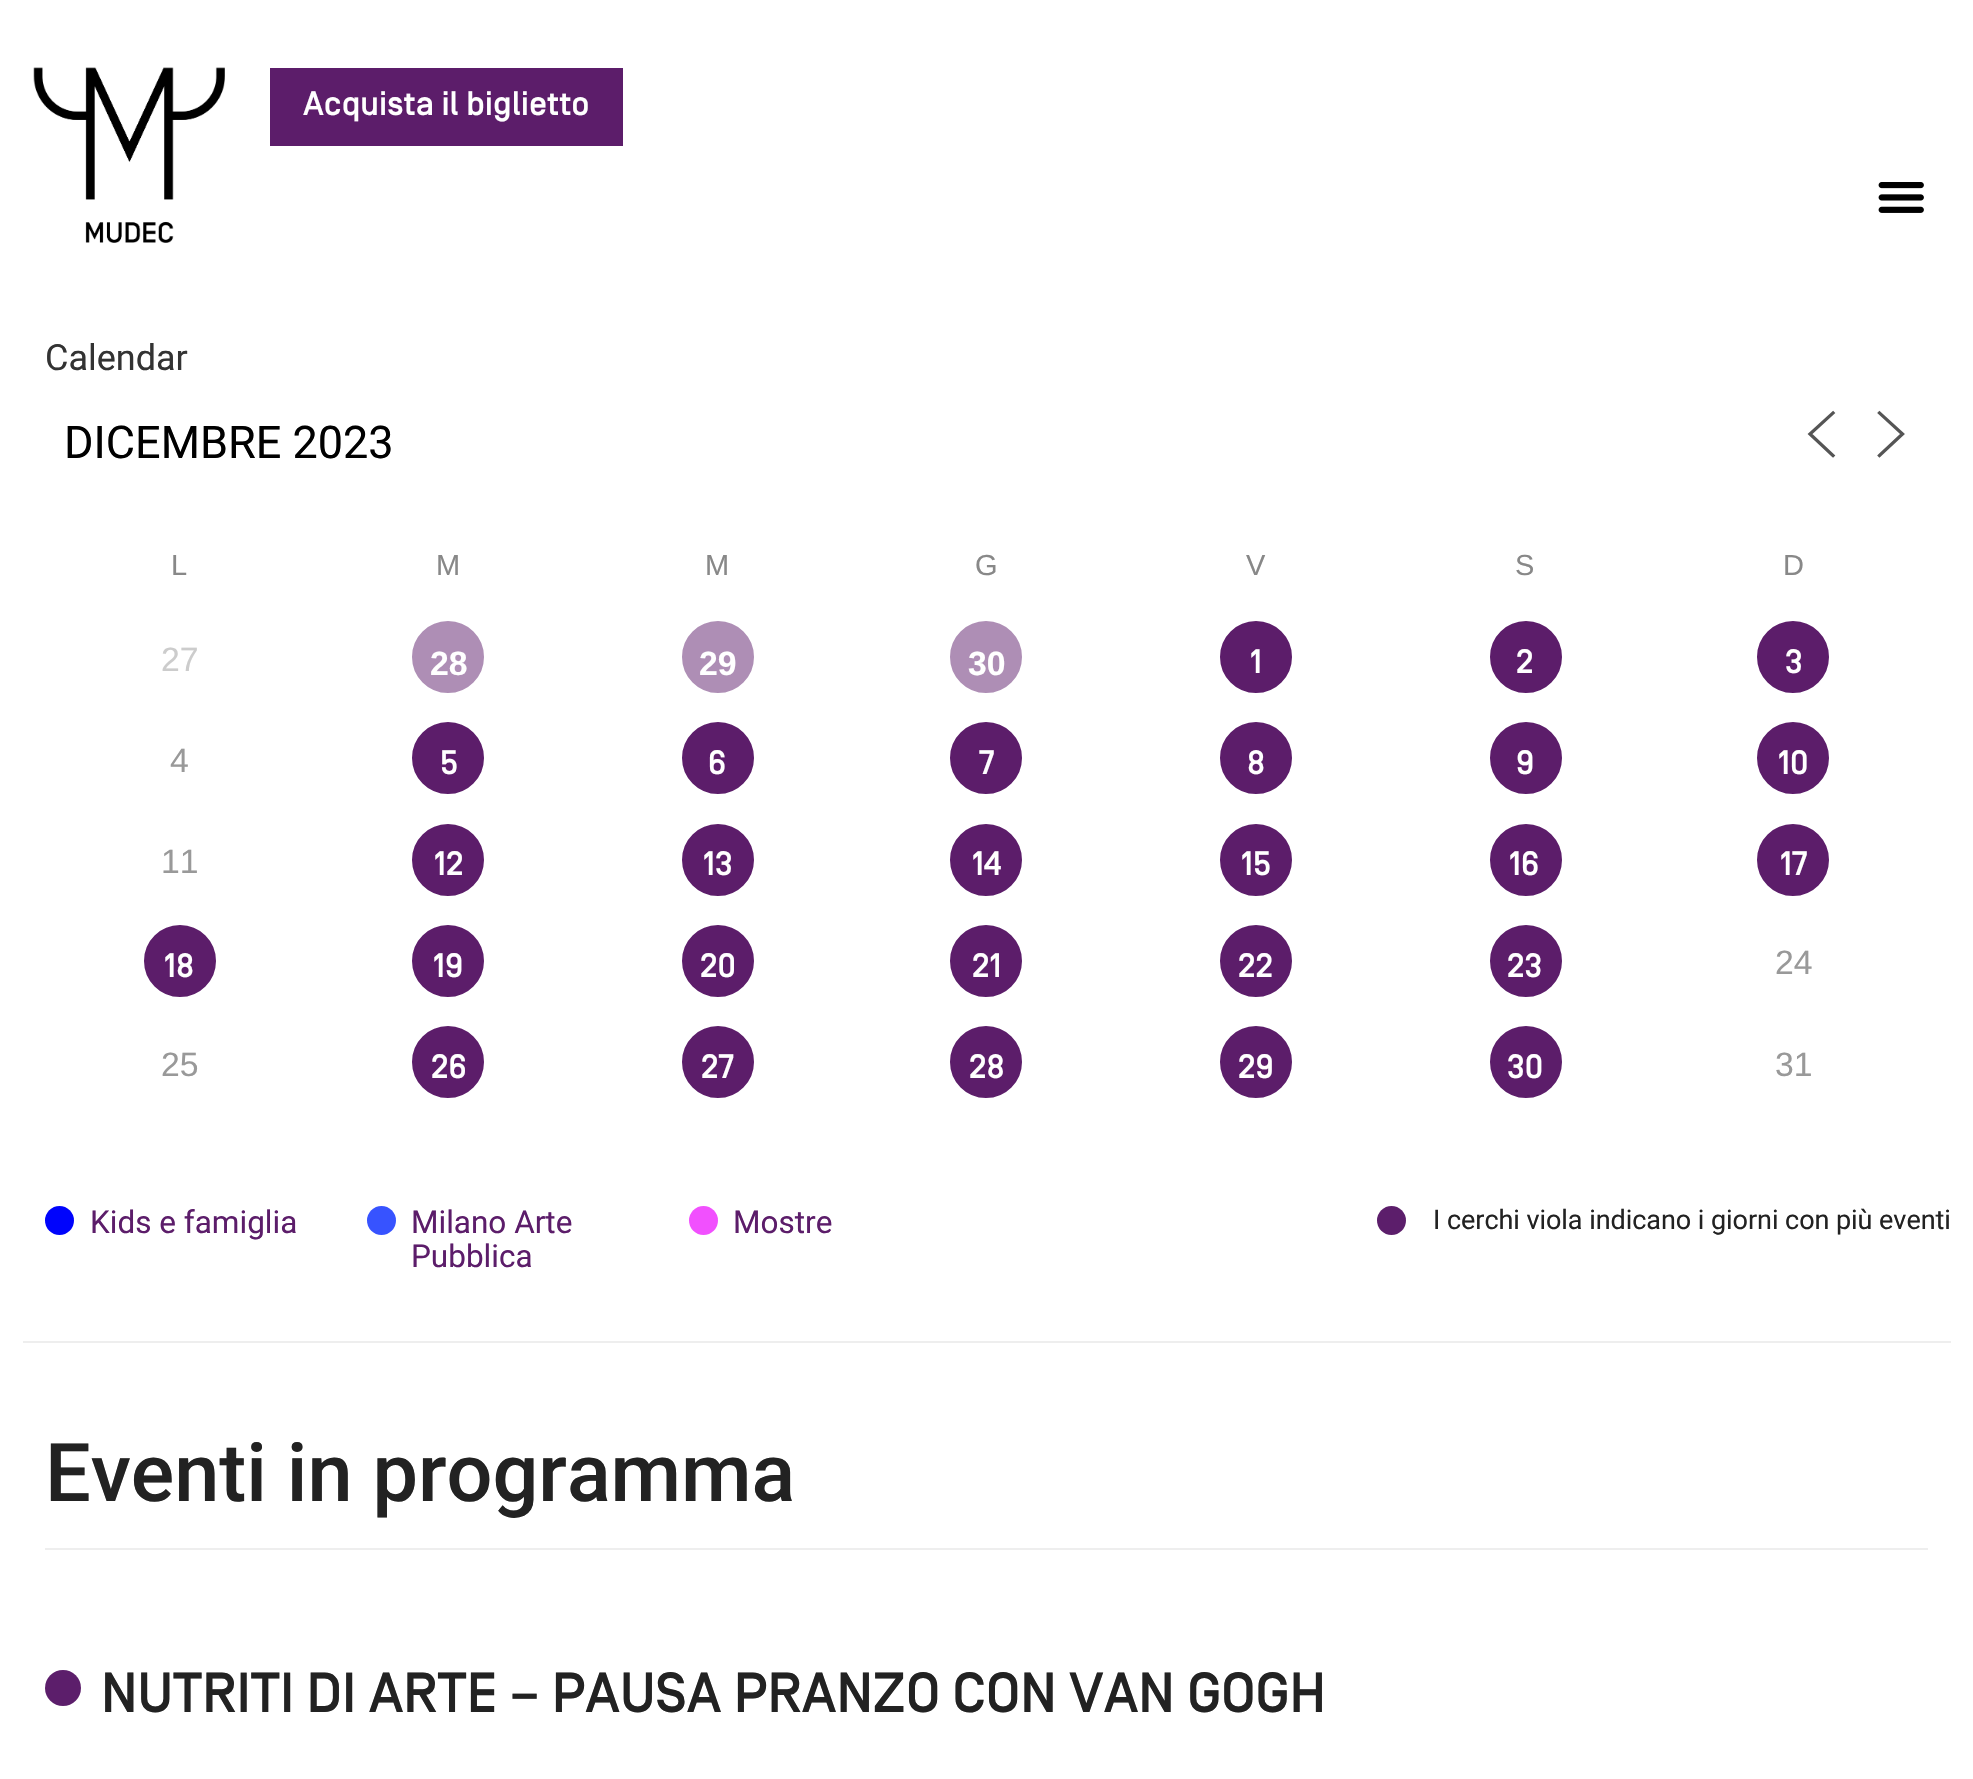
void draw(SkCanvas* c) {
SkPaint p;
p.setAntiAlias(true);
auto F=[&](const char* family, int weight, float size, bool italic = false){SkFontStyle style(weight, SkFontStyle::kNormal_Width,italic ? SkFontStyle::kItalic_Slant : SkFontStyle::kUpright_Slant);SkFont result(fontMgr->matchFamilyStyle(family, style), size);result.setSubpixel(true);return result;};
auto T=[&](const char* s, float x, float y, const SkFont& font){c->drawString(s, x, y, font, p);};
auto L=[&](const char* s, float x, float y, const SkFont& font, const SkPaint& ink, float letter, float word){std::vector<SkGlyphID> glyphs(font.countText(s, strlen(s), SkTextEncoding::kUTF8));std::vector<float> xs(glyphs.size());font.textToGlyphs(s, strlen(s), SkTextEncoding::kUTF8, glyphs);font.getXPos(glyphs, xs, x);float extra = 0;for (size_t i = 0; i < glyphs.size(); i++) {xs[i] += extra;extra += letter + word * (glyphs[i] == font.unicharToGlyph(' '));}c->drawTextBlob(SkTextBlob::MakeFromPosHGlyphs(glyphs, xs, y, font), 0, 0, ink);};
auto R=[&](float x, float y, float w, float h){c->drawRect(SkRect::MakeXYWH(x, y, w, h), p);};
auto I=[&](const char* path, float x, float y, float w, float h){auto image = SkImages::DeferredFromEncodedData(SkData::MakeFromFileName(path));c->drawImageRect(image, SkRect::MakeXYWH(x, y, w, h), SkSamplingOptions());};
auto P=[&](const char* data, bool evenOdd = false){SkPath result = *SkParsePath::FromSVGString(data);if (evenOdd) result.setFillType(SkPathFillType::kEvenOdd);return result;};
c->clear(0xffffffff);
I("1.png",33,67,192,176);
p.setColor(0xff5c1d6a);
R(270,68,353,78);
auto f1 = F("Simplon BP",500,33.75);
p.setColor(0xffffffff);
T("Acquista il biglietto",303,115,f1);
I("2.png",1878,182,46,31);
auto f2 = F("Roboto",400,36);
p.setColor(0xff333333);
T("Calendar",45,370,f2);
auto f3 = F("Roboto",400,45);
p.setColor(0xff000000);
T("DICEMBRE 2023",64,458,f3);
p.setStroke(true);
p.setStrokeWidth(3.3);
p.setStrokeCap(SkPaint::kSquare_Cap);
p.setColor(0xff555555);
c->drawPath(P("M1833 455.5l-23-21.5l23-21"),p);
c->drawPath(P("M1879.5 455.5l23-21.5l-23-21"),p);
auto f4 = F("Liberation Sans",400,29);
p.setStroke(false);
p.setColor(0xff888888);
T("L",171,575,f4);
T("M",436,575,f4);
T("M",705,575,f4);
T("G",975,575,f4);
T("V",1246,575,f4);
T("S",1515,575,f4);
T("D",1783,575,f4);
auto f5 = F("Liberation Sans",400,33.75);
p.setColor(0xffcccccc);
T("27",161,671,f5);
p.setColor(0xffae8eb5);
c->drawCircle(448,657,35,p);
p.setStroke(true);
p.setStrokeWidth(2);
p.setStrokeCap(SkPaint::kButt_Cap);
c->drawCircle(448,657,35,p);
auto f6 = F("Liberation Sans",700,33.75);
p.setStroke(false);
p.setColor(0xffffffff);
T("28",430,675,f6);
p.setColor(0xffae8eb5);
c->drawCircle(718,657,35,p);
p.setStroke(true);
c->drawCircle(718,657,35,p);
p.setStroke(false);
p.setColor(0xffffffff);
T("29",699,675,f6);
p.setColor(0xffae8eb5);
c->drawCircle(986,657,35,p);
p.setStroke(true);
c->drawCircle(986,657,35,p);
p.setStroke(false);
p.setColor(0xffffffff);
T("30",968,675,f6);
p.setColor(0xff5c1d6a);
c->drawCircle(1256,657,35,p);
p.setStroke(true);
c->drawCircle(1256,657,35,p);
p.setStroke(false);
p.setColor(0xffffffff);
T("1",1250,673,f1);
p.setColor(0xff5c1d6a);
c->drawCircle(1526,657,35,p);
p.setStroke(true);
c->drawCircle(1526,657,35,p);
p.setStroke(false);
p.setColor(0xffffffff);
T("2",1516,673,f1);
p.setColor(0xff5c1d6a);
c->drawCircle(1793,657,35,p);
p.setStroke(true);
c->drawCircle(1793,657,35,p);
p.setStroke(false);
p.setColor(0xffffffff);
T("3",1785,673,f1);
p.setColor(0xff999999);
T("4",170,772,f5);
p.setColor(0xff5c1d6a);
c->drawCircle(448,758,35,p);
p.setStroke(true);
c->drawCircle(448,758,35,p);
p.setStroke(false);
p.setColor(0xffffffff);
T("5",440,774,f1);
p.setColor(0xff5c1d6a);
c->drawCircle(718,758,35,p);
p.setStroke(true);
c->drawCircle(718,758,35,p);
p.setStroke(false);
p.setColor(0xffffffff);
T("6",708,774,f1);
p.setColor(0xff5c1d6a);
c->drawCircle(986,758,35,p);
p.setStroke(true);
c->drawCircle(986,758,35,p);
p.setStroke(false);
p.setColor(0xffffffff);
T("7",979,774,f1);
p.setColor(0xff5c1d6a);
c->drawCircle(1256,758,35,p);
p.setStroke(true);
c->drawCircle(1256,758,35,p);
p.setStroke(false);
p.setColor(0xffffffff);
T("8",1247,774,f1);
p.setColor(0xff5c1d6a);
c->drawCircle(1526,758,35,p);
p.setStroke(true);
c->drawCircle(1526,758,35,p);
p.setStroke(false);
p.setColor(0xffffffff);
T("9",1516,774,f1);
p.setColor(0xff5c1d6a);
c->drawCircle(1793,758,35,p);
p.setStroke(true);
c->drawCircle(1793,758,35,p);
p.setStroke(false);
p.setColor(0xffffffff);
T("10",1778,774,f1);
p.setColor(0xff999999);
T("11",161,873,f5);
p.setColor(0xff5c1d6a);
c->drawCircle(448,860,35,p);
p.setStroke(true);
c->drawCircle(448,860,35,p);
p.setStroke(false);
p.setColor(0xffffffff);
T("12",434,875,f1);
p.setColor(0xff5c1d6a);
c->drawCircle(718,860,35,p);
p.setStroke(true);
c->drawCircle(718,860,35,p);
p.setStroke(false);
p.setColor(0xffffffff);
T("13",703,875,f1);
p.setColor(0xff5c1d6a);
c->drawCircle(986,860,35,p);
p.setStroke(true);
c->drawCircle(986,860,35,p);
p.setStroke(false);
p.setColor(0xffffffff);
T("14",972,875,f1);
p.setColor(0xff5c1d6a);
c->drawCircle(1256,860,35,p);
p.setStroke(true);
c->drawCircle(1256,860,35,p);
p.setStroke(false);
p.setColor(0xffffffff);
T("15",1241,875,f1);
p.setColor(0xff5c1d6a);
c->drawCircle(1526,860,35,p);
p.setStroke(true);
c->drawCircle(1526,860,35,p);
p.setStroke(false);
p.setColor(0xffffffff);
T("16",1509,875,f1);
p.setColor(0xff5c1d6a);
c->drawCircle(1793,860,35,p);
p.setStroke(true);
c->drawCircle(1793,860,35,p);
p.setStroke(false);
p.setColor(0xffffffff);
T("17",1780,875,f1);
p.setColor(0xff5c1d6a);
c->drawCircle(180,961,35,p);
p.setStroke(true);
c->drawCircle(180,961,35,p);
p.setStroke(false);
p.setColor(0xffffffff);
T("18",164,977,f1);
p.setColor(0xff5c1d6a);
c->drawCircle(448,961,35,p);
p.setStroke(true);
c->drawCircle(448,961,35,p);
p.setStroke(false);
p.setColor(0xffffffff);
T("19",433,977,f1);
p.setColor(0xff5c1d6a);
c->drawCircle(718,961,35,p);
p.setStroke(true);
c->drawCircle(718,961,35,p);
p.setStroke(false);
p.setColor(0xffffffff);
T("20",700,977,f1);
p.setColor(0xff5c1d6a);
c->drawCircle(986,961,35,p);
p.setStroke(true);
c->drawCircle(986,961,35,p);
p.setStroke(false);
p.setColor(0xffffffff);
T("21",972,977,f1);
p.setColor(0xff5c1d6a);
c->drawCircle(1256,961,35,p);
p.setStroke(true);
c->drawCircle(1256,961,35,p);
p.setStroke(false);
p.setColor(0xffffffff);
T("22",1238,977,f1);
p.setColor(0xff5c1d6a);
c->drawCircle(1526,961,35,p);
p.setStroke(true);
c->drawCircle(1526,961,35,p);
p.setStroke(false);
p.setColor(0xffffffff);
T("23",1507,977,f1);
p.setColor(0xff999999);
T("24",1775,974,f5);
T("25",161,1076,f5);
p.setColor(0xff5c1d6a);
c->drawCircle(448,1062,35,p);
p.setStroke(true);
c->drawCircle(448,1062,35,p);
p.setStroke(false);
p.setColor(0xffffffff);
T("26",431,1078,f1);
p.setColor(0xff5c1d6a);
c->drawCircle(718,1062,35,p);
p.setStroke(true);
c->drawCircle(718,1062,35,p);
p.setStroke(false);
p.setColor(0xffffffff);
T("27",701,1078,f1);
p.setColor(0xff5c1d6a);
c->drawCircle(986,1062,35,p);
p.setStroke(true);
c->drawCircle(986,1062,35,p);
p.setStroke(false);
p.setColor(0xffffffff);
T("28",969,1078,f1);
p.setColor(0xff5c1d6a);
c->drawCircle(1256,1062,35,p);
p.setStroke(true);
c->drawCircle(1256,1062,35,p);
p.setStroke(false);
p.setColor(0xffffffff);
T("29",1238,1078,f1);
p.setColor(0xff5c1d6a);
c->drawCircle(1526,1062,35,p);
p.setStroke(true);
c->drawCircle(1526,1062,35,p);
p.setStroke(false);
p.setColor(0xffffffff);
T("30",1507,1078,f1);
p.setColor(0xff999999);
T("31",1775,1076,f5);
p.setColor(0xffeeeeee);
R(23,1341,1928,2);
p.setColor(0xff0004fc);
c->drawCircle(59.5,1220.5,14.5,p);
auto f7 = F("Roboto",400,31.5);
p.setColor(0xff5c1d6a);
T("Kids e famiglia",90,1233,f7);
p.setColor(0xff3753ff);
c->drawCircle(381.5,1220.5,14.5,p);
p.setColor(0xff5c1d6a);
T("Milano Arte",411,1233,f7);
T("Pubblica",411,1267,f7);
p.setColor(0xfff150fe);
c->drawCircle(703.5,1220.5,14.5,p);
p.setColor(0xff5c1d6a);
T("Mostre",733,1233,f7);
p.setColor(0xff5c1e6b);
c->drawCircle(1391.5,1220.5,14.5,p);
auto f8 = F("Roboto",400,27);
p.setColor(0xff222222);
L("I cerchi viola indicano i giorni con più eventi",1433,1229,f8,p,-.05,0);
p.setColor(0xffeeeeee);
R(45,1548,1883,2);
auto f9 = F("Roboto",500,81);
p.setColor(0xff222222);
L("Eventi in programma",45,1501,f9,p,-.05,0);
p.setColor(0xff5c1e6b);
c->drawCircle(63,1688,18,p);
auto f10 = F("Simplon BP",500,56.25);
p.setColor(0xff222222);
T("NUTRITI DI ARTE – PAUSA PRANZO CON VAN GOGH",101,1712,f10);
}
